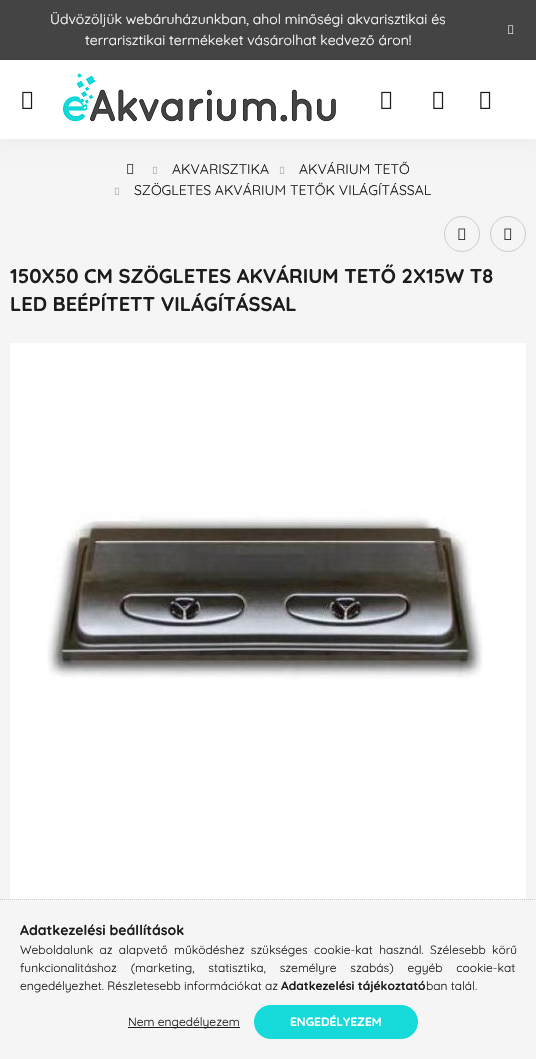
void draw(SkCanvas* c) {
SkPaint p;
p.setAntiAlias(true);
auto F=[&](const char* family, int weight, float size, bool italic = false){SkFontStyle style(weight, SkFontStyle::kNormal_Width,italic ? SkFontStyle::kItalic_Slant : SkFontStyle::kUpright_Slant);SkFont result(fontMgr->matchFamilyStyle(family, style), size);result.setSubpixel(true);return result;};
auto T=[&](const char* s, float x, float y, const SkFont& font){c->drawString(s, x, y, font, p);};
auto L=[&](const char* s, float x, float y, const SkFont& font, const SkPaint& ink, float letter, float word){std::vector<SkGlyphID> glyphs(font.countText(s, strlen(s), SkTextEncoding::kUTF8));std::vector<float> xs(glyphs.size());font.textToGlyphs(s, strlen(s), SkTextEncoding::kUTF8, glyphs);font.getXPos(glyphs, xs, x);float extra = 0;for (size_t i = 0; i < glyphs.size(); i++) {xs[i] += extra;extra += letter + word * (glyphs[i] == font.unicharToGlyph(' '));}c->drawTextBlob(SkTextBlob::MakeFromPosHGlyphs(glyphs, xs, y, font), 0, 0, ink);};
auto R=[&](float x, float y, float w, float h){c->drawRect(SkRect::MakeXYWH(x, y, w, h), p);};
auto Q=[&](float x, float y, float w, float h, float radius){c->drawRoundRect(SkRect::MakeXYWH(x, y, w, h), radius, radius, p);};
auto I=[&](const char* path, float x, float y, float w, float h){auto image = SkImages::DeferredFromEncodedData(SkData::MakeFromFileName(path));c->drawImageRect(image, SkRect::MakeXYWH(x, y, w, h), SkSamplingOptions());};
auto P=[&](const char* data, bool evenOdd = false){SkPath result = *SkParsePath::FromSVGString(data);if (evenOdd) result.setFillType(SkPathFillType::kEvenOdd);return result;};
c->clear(0xfff5f5f5);
p.setColor(0xff444444);
R(0,0,536,60);
auto f1 = F("Quicksand",400,14);
p.setColor(0xffffffff);
T("Üdvözöljük webáruházunkban, ahol minőségi akvarisztikai és",50,24,f1);
I("1.png",508,25,6,9);
T("terrarisztikai termékeket vásárolhat kedvező áron!",85,45,f1);
I("4.png",127,164,7,10);
I("5.png",152,166,6,8);
I("5.png",279,166,6,8);
p.setColor(0x0d000000);
p.setMaskFilter(SkMaskFilter::MakeBlur(kNormal_SkBlurStyle, 10));
c->drawRect(SkRect::MakeXYWH(0,60,536,79),p);
p.setMaskFilter(nullptr);
p.setColor(0xffffffff);
R(0,60,536,79);
I("2.png",22,91,11,18);
I("3.png",63,73,273,49);
I("2.png",381,91,11,18);
I("2.png",433,91,11,18);
I("2.png",480,91,11,18);
p.setColor(0xff1c1c1c);
T("AKVARISZTIKA",172,174,f1);
T("AKVÁRIUM TETŐ",299,174,f1);
I("5.png",114,187,6,8);
T("SZÖGLETES AKVÁRIUM TETŐK VILÁGÍTÁSSAL",134,195,f1);
p.setStroke(true);
p.setStrokeWidth(1);
p.setColor(0xffcccccc);
c->drawCircle(462,234,17.5,p);
I("6.png",458,228,8,12);
c->drawCircle(508,234,17.5,p);
I("6.png",504,228,8,12);
auto f2 = F("Quicksand",700,20);
p.setStroke(false);
p.setColor(0xff1c1c1c);
T("150X50 CM SZÖGLETES AKVÁRIUM TETŐ 2X15W T8",10,283,f2);
T("LED BEÉPÍTETT VILÁGÍTÁSSAL",10,311,f2);
p.setColor(0xffffffff);
R(10,343,516,556);
I("7.png",47,511,436,168);
p.setStroke(true);
p.setColor(0xffcccccc);
p.setPathEffect(SkDashPathEffect::Make({{1,1}}, 0));
c->drawPath(P("M0 899.5h536"),p);
p.setPathEffect(nullptr);
auto f3 = F("Quicksand",700,14);
p.setStroke(false);
p.setColor(0xff1c1c1c);
T("Adatkezelési beállítások",20,935,f3);
auto f4 = F("Quicksand",400,12);
L("Weboldalunk az alapvető működéshez szükséges cookie-kat használ. Szélesebb körű",20,954,f4,p,0,3);
L("funkcionalitáshoz (marketing, statisztika, személyre szabás) egyéb cookie-kat",20,972,f4,p,0,10.5);
T("engedélyezhet. Részletesebb információkat az",20,990,f4);
auto f5 = F("Quicksand",700,12);
T("Adatkezelési tájékoztató",281,990,f5);
T("ban talál.",426,990,f4);
R(128,1027,112,1);
T("Nem engedélyezem",128,1026,f4);
p.setColor(0xff16d9d9);
Q(254,1005,164,34,17);
p.setColor(0xffffffff);
T("ENGEDÉLYEZEM",290,1026,f5);
}
